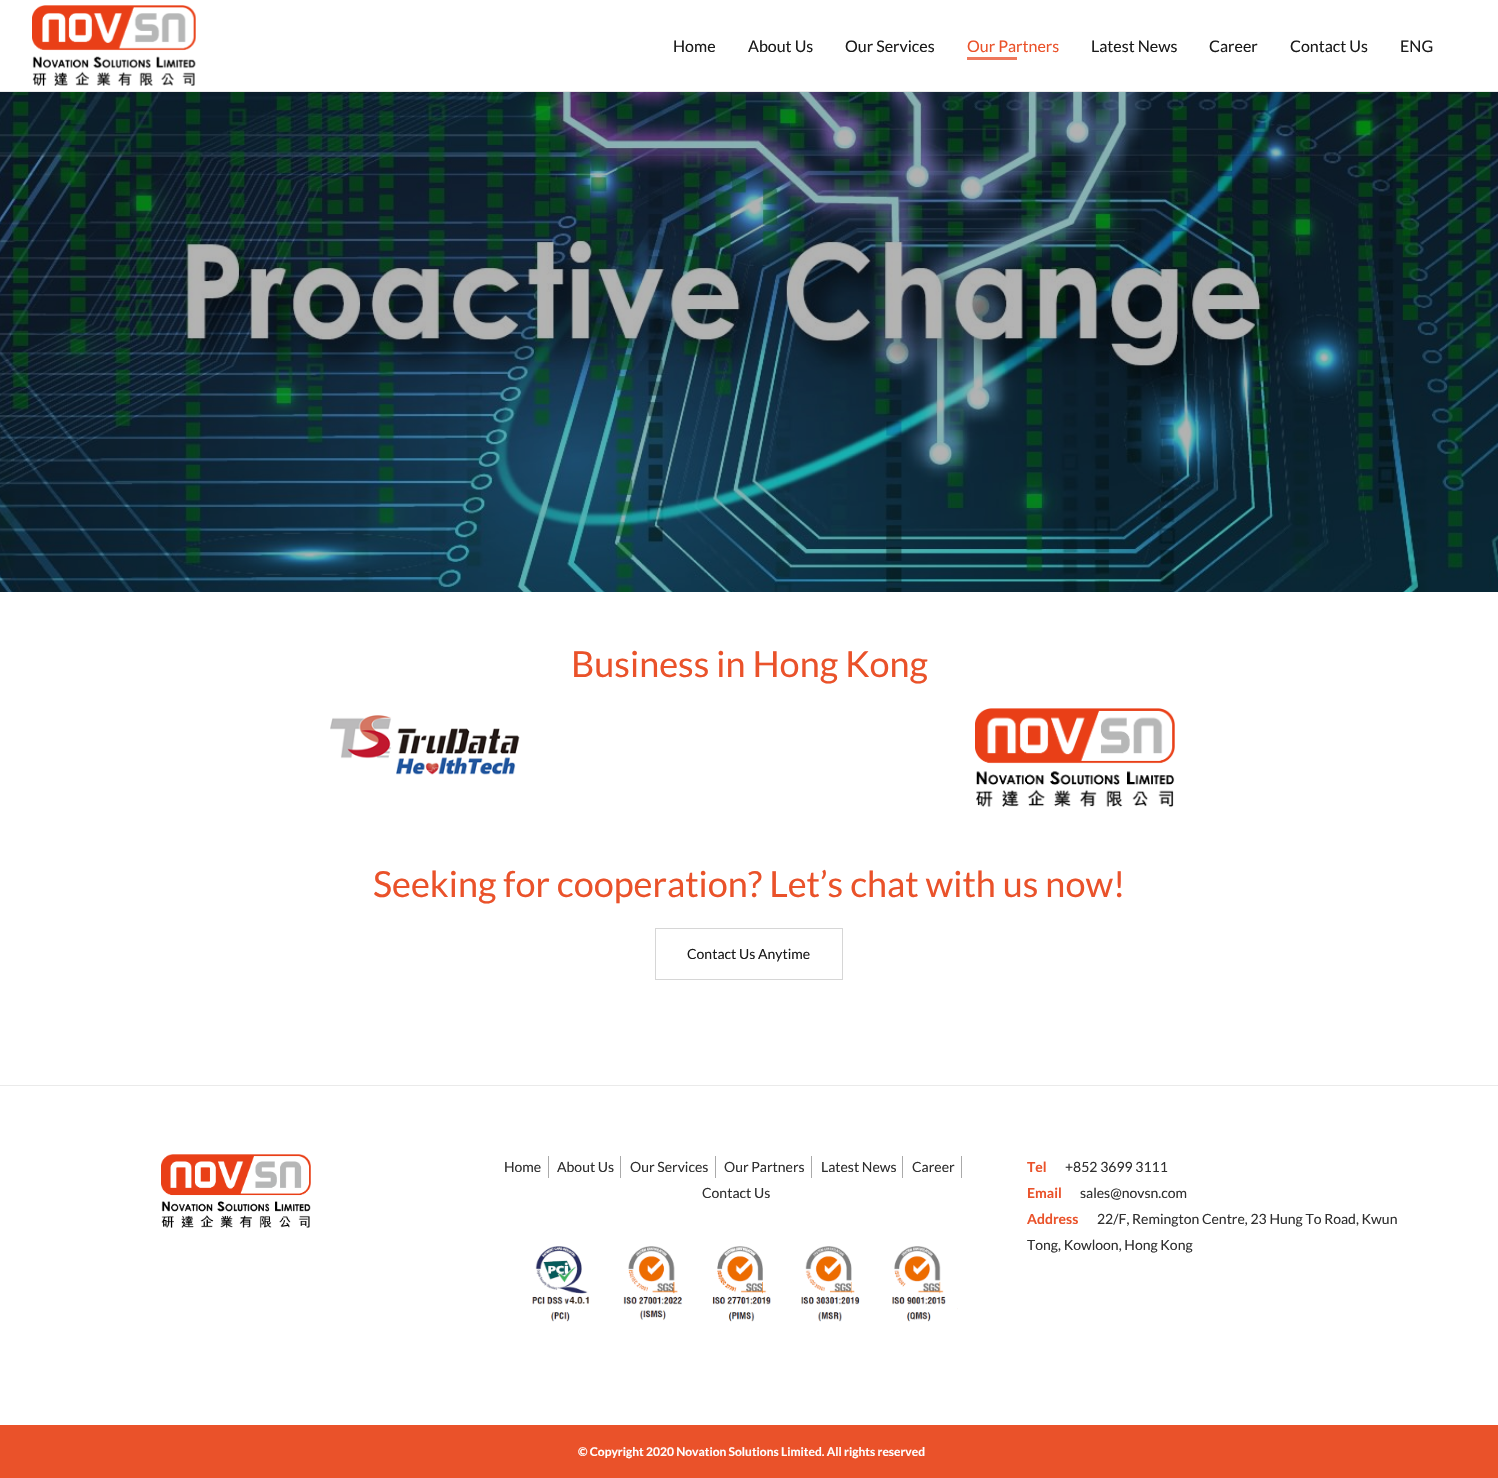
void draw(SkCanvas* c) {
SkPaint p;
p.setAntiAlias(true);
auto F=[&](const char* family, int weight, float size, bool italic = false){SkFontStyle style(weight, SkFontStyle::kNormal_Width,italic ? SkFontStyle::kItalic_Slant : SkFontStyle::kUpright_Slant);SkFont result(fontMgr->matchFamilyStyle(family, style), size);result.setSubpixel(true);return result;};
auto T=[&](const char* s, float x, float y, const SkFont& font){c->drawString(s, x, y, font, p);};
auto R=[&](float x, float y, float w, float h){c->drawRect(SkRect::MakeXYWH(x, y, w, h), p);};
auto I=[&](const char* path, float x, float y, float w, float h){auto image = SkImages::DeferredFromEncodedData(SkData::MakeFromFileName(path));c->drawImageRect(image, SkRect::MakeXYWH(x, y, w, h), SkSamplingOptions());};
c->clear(0xffffffff);
p.setColor(0xffeaeaea);
R(0,91,1498,1);
I("1.png",32,5,164,81);
auto f1 = F("Lato",400,16);
p.setColor(0xff1b1b1b);
T("Home",673,52,f1);
T("About Us",748,52,f1);
T("Our Services",845,52,f1);
p.setColor(0xffea522a);
T("Our Partners",967,52,f1);
p.setColor(0xffee785c);
R(967,57,50,3);
p.setColor(0xff1b1b1b);
T("Latest News",1091,52,f1);
T("Career",1209,52,f1);
T("Contact Us",1290,52,f1);
T("ENG",1400,52,f1);
I("2.png",0,92,1498,500);
auto f2 = F("Lato",400,36);
p.setColor(0xffea522a);
T("Business in Hong Kong",571,677,f2);
I("3.png",330,715,190,60);
I("4.png",975,708,200,99);
T("Seeking for cooperation? Let’s chat with us now!",373,897,f2);
p.setStroke(true);
p.setStrokeWidth(1);
p.setColor(0xffd6d6d6);
c->drawRect(SkRect::MakeXYWH(655.5,928.5,187,51),p);
auto f3 = F("Lato",400,14);
p.setStroke(false);
p.setColor(0xff1b1b1b);
T("Contact Us Anytime",687,959,f3);
p.setColor(0xffeaeaea);
R(0,1085,1498,1);
I("5.png",161,1154,150,74);
p.setColor(0xffaaaaaa);
R(548,1156,1,22);
p.setColor(0xff303030);
T("Home",504,1172,f3);
p.setColor(0xffaaaaaa);
R(620,1156,1,22);
p.setColor(0xff303030);
T("About Us",557,1172,f3);
p.setColor(0xffaaaaaa);
R(715,1156,1,22);
p.setColor(0xff303030);
T("Our Services",630,1172,f3);
p.setColor(0xffaaaaaa);
R(811,1156,1,22);
p.setColor(0xff303030);
T("Our Partners",724,1172,f3);
p.setColor(0xffaaaaaa);
R(902,1156,1,22);
p.setColor(0xff303030);
T("Latest News",821,1172,f3);
p.setColor(0xffaaaaaa);
R(961,1156,1,22);
p.setColor(0xff303030);
T("Career",912,1172,f3);
T("Contact Us",702,1198,f3);
I("6.png",532,1246,426,76);
auto f4 = F("Lato",700,14);
p.setColor(0xffea522a);
T("Tel",1027,1172,f4);
p.setColor(0xff303030);
T("+852 3699 3111",1065,1172,f3);
p.setColor(0xffea522a);
T("Email",1027,1198,f4);
p.setColor(0xff303030);
T("sales@novsn.com",1080,1198,f3);
p.setColor(0xffea522a);
T("Address",1027,1224,f4);
p.setColor(0xff303030);
T("22/F, Remington Centre, 23 Hung To Road, Kwun",1097,1224,f3);
T("Tong, Kowloon, Hong Kong",1027,1250,f3);
p.setColor(0xffea522a);
R(0,1425,1498,53);
auto f5 = F("Lato",700,12);
p.setColor(0xffffffff);
T("© Copyright 2020 Novation Solutions Limited. All rights reserved",578,1456,f5);
}
